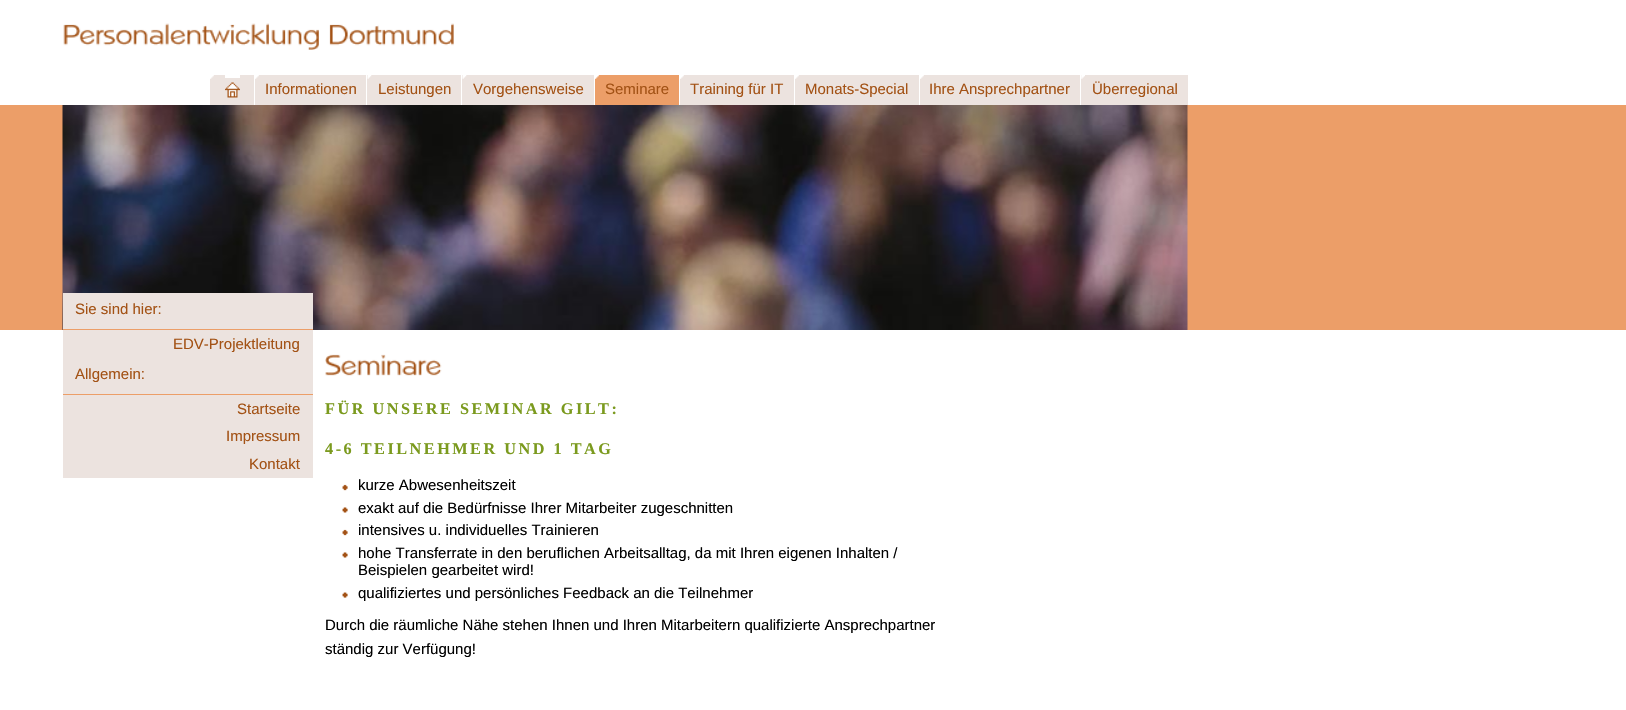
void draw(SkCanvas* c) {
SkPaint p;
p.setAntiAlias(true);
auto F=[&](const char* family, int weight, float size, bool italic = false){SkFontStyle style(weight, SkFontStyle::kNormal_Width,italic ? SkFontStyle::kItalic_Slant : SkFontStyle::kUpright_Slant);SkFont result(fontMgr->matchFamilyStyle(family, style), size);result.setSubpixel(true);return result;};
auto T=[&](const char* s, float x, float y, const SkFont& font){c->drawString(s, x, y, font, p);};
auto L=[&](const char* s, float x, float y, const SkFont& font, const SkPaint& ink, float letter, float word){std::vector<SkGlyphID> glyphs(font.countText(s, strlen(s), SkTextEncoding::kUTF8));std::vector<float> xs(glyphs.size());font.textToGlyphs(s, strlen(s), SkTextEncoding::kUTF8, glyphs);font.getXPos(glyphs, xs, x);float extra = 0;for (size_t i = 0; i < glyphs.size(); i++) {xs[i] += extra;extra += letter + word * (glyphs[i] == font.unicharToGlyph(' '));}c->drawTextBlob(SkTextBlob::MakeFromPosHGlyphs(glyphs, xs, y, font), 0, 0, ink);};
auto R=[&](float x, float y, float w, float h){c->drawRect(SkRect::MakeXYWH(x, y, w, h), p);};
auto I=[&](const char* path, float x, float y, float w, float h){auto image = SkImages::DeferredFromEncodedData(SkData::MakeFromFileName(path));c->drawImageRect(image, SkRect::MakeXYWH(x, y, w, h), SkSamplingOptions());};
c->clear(0xffffffff);
I("1.png",63,23,391,27);
p.setColor(0xffece3df);
R(210,75,15,30);
I("2.png",210,75,4,4);
R(240,75,14,30);
R(255,75,111,30);
I("2.png",255,75,4,4);
R(367,75,94,30);
I("3.png",367,75,5,4);
R(462,75,132,30);
I("3.png",462,75,5,4);
p.setColor(0xffec9e68);
R(595,75,84,30);
I("4.png",595,75,4,4);
p.setColor(0xffece3df);
R(680,75,114,30);
I("5.png",680,75,4,4);
R(795,75,124,30);
I("2.png",795,75,4,4);
R(920,75,160,30);
I("2.png",920,75,4,4);
R(1081,75,107,30);
I("6.png",1081,75,4,4);
R(225,78,15,27);
auto f1 = F("Liberation Sans",400,15);
p.setColor(0xffa35215);
T("Überregional",1092,94,f1);
I("7.png",225,82,15,16);
T("Informationen",265,94,f1);
T("Leistungen",378,94,f1);
T("Vorgehensweise",473,94,f1);
T("Seminare",605,94,f1);
T("Training für IT",690,94,f1);
T("Monats-Special",805,94,f1);
T("Ihre Ansprechpartner",929,94,f1);
p.setColor(0xffec9e68);
R(0,105,1626,225);
I("8.png",62,105,1126,225);
p.setColor(0xffece3df);
R(63,293,250,185);
p.setColor(0xffec9e68);
R(63,329,250,1);
p.setColor(0xffa35215);
T("Sie sind hier:",75,314,f1);
T("EDV-Projektleitung",173,349,f1);
p.setColor(0xffec9e68);
R(63,394,250,1);
p.setColor(0xffa35215);
T("Allgemein:",75,379,f1);
T("Startseite",237,414,f1);
T("Impressum",226,441,f1);
T("Kontakt",249,469,f1);
I("9.png",325,354,117,22);
auto f2 = F("Liberation Serif",700,16.25);
p.setColor(0xff7b9a1e);
L("FÜR UNSERE SEMINAR GILT:",325,414,f2,p,2.5,0);
L("4-6 TEILNEHMER UND 1 TAG",325,454,f2,p,2.5,0);
I("10.png",342,484,6,7);
p.setColor(0xff000000);
T("kurze Abwesenheitszeit",358,490,f1);
I("11.png",342,507,6,6);
T("exakt auf die Bedürfnisse Ihrer Mitarbeiter zugeschnitten",358,513,f1);
I("10.png",342,529,6,7);
T("intensives u. individuelles Trainieren",358,535,f1);
I("11.png",342,552,6,6);
T("hohe Transferrate in den beruflichen Arbeitsalltag, da mit Ihren eigenen Inhalten /",358,558,f1);
T("Beispielen gearbeitet wird!",358,575,f1);
I("12.png",342,592,6,6);
T("qualifiziertes und persönliches Feedback an die Teilnehmer",358,598,f1);
T("Durch die räumliche Nähe stehen Ihnen und Ihren Mitarbeitern qualifizierte Ansprechpartner",325,630,f1);
T("ständig zur Verfügung!",325,654,f1);
}
